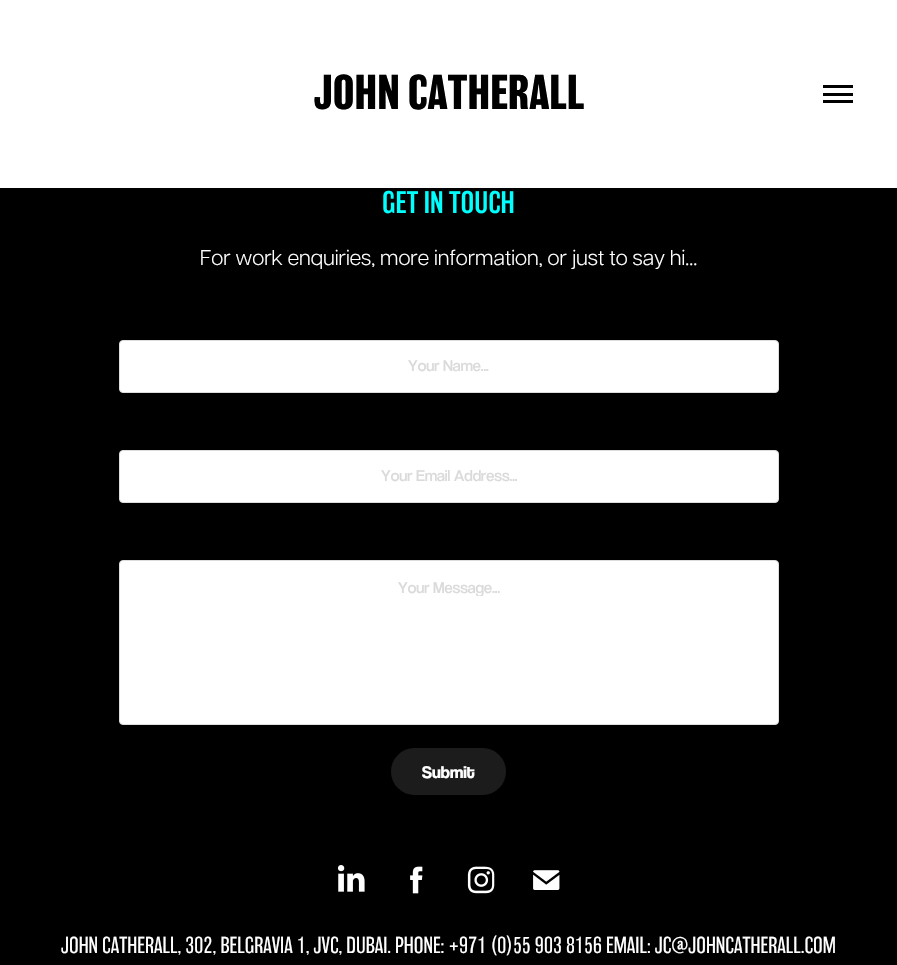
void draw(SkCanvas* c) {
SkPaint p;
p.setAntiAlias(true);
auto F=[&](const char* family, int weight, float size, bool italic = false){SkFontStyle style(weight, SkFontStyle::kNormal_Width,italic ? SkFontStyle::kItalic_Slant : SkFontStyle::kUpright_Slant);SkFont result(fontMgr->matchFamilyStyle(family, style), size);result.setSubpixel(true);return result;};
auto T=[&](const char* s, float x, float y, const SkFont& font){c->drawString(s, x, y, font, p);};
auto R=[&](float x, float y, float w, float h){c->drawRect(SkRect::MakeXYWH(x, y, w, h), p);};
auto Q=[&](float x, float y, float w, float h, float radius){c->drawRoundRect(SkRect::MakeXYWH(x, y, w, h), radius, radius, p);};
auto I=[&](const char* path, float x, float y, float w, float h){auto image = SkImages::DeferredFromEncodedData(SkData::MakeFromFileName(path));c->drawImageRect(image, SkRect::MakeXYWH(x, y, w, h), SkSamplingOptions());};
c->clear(0xff000000);
p.setColor(0xffffffff);
R(0,0,897,188);
auto f1 = F("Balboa",700,45);
p.setColor(0xff000000);
T("JOHN CATHERALL",314,109,f1);
R(823,85,30,3);
R(823,93,30,3);
R(823,100,30,3);
auto f2 = F("Balboa",300,28.75);
p.setColor(0xff00ffff);
T("GET IN TOUCH",382,213,f2);
auto f3 = F("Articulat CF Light",300,21.25);
p.setColor(0xffffffff);
T("For work enquiries, more information, or just to say hi…",200,265,f3);
c->drawRoundRect(SkRect::MakeXYWH(119.5,340.5,659,52),3.5,3.5,p);
p.setStroke(true);
p.setStrokeWidth(1);
p.setColor(0xffdddddd);
c->drawRoundRect(SkRect::MakeXYWH(119.5,340.5,659,52),3.5,3.5,p);
auto f4 = F("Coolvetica",400,16.25);
p.setStroke(false);
p.setColor(0xffdadada);
T("Your Name...",408,371,f4);
p.setColor(0xffffffff);
c->drawRoundRect(SkRect::MakeXYWH(119.5,450.5,659,52),3.5,3.5,p);
p.setStroke(true);
p.setColor(0xffdddddd);
c->drawRoundRect(SkRect::MakeXYWH(119.5,450.5,659,52),3.5,3.5,p);
p.setStroke(false);
p.setColor(0xffdadada);
T("Your Email Address...",381,481,f4);
p.setColor(0xffffffff);
c->drawRoundRect(SkRect::MakeXYWH(119.5,560.5,659,164),3.5,3.5,p);
p.setStroke(true);
p.setColor(0xffdddddd);
c->drawRoundRect(SkRect::MakeXYWH(119.5,560.5,659,164),3.5,3.5,p);
c->save();
c->clipRect(SkRect::MakeXYWH(133,578,632,18));
p.setStroke(false);
p.setColor(0xffdadada);
T("Your Message...",398,593,f4);
c->restore();
p.setColor(0xff1c1c1c);
Q(391,748,115,47,23.5);
auto f5 = F("Coolvetica",700,17.5);
p.setColor(0xffffffff);
T("Submit",422,778,f5);
I("1.png",337,865,28,27);
I("2.png",410,866,13,28);
I("3.png",467,866,28,28);
I("4.png",533,870,27,20);
auto f6 = F("Balboa",200,21.25);
T("JOHN CATHERALL, 302, BELGRAVIA 1, JVC, DUBAI. PHONE: +971 (0)55 903 8156 EMAIL: JC@JOHNCATHERALL.COM",61,953,f6);
}
